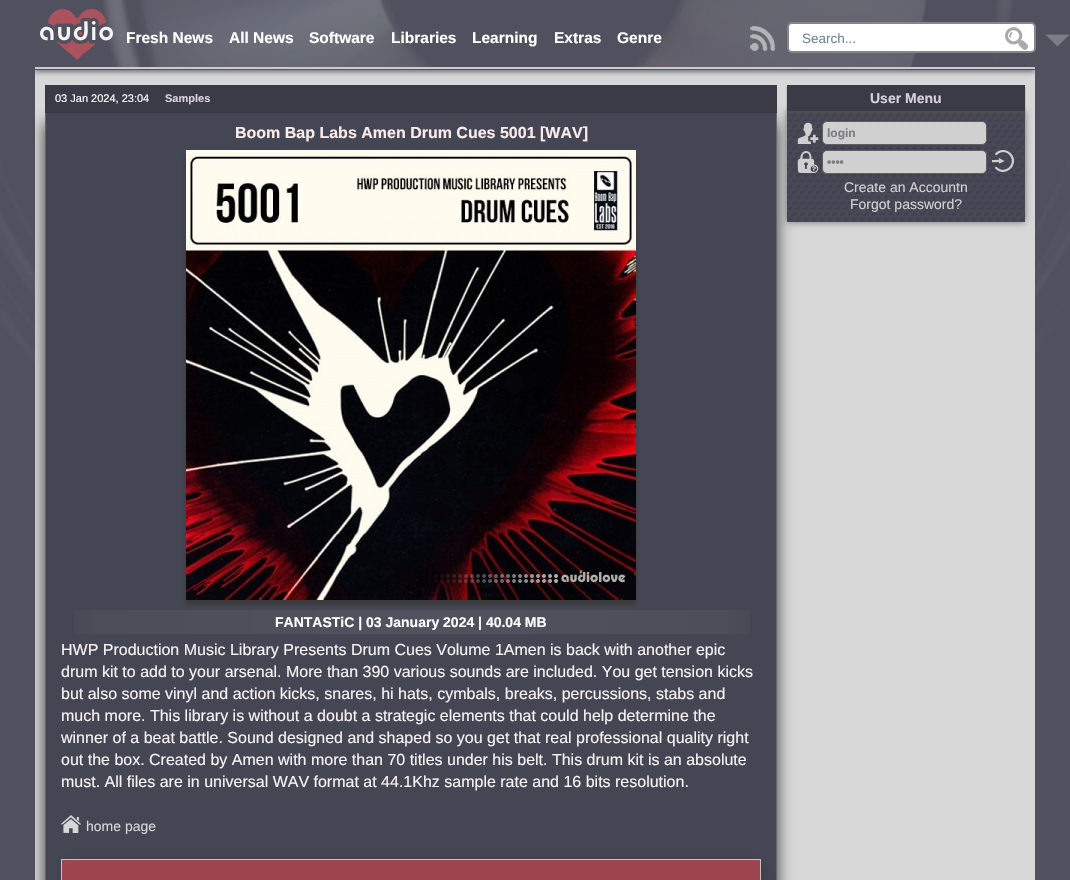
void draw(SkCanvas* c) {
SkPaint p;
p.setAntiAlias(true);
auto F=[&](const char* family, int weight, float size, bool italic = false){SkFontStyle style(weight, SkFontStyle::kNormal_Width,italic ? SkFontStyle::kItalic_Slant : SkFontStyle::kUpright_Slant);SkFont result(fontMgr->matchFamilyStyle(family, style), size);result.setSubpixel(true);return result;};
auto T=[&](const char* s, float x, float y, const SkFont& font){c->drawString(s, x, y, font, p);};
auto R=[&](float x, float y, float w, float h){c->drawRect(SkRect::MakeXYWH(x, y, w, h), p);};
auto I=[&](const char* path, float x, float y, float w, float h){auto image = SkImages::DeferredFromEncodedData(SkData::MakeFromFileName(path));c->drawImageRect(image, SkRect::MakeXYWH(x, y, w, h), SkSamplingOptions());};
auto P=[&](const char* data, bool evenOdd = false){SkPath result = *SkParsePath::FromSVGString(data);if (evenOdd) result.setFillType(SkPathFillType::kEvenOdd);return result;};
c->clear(0xff50515f);
I("1.png",0,0,1070,575);
p.setColor(0xffd8d8d8);
R(35,70,1000,810);
I("2.png",35,0,1000,70);
c->save();
c->clipPath(P("M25 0h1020v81h-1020zm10 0h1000v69h-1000z",true),true);
p.setColor(0xff50515f);
p.setMaskFilter(SkMaskFilter::MakeBlur(kNormal_SkBlurStyle, 3));
c->drawRect(SkRect::MakeXYWH(35,2,1000,69),p);
p.setMaskFilter(nullptr);
c->restore();
I("3.png",40,9,73,51);
p.setColor(0xffcccccc);
R(35,67,1000,2);
auto f1 = F("Liberation Sans",700,15.5);
p.setColor(0xffffffff);
T("Fresh News",126,43,f1);
T("All News",229,43,f1);
T("Software",309,43,f1);
T("Libraries",391,43,f1);
T("Learning",472,43,f1);
T("Extras",554,43,f1);
T("Genre",617,43,f1);
I("4.png",750,26,25,25);
c->drawRoundRect(SkRect::MakeXYWH(788,23,247,29),4,4,p);
p.setStroke(true);
p.setStrokeWidth(2);
p.setColor(0xff868688);
c->drawRoundRect(SkRect::MakeXYWH(788,23,247,29),4,4,p);
auto f2 = F("Liberation Sans",400,13.5);
p.setStroke(false);
p.setColor(0xff708893);
T("Search...",802,43,f2);
I("5.png",1005,27,23,23);
I("6.png",1045,34,25,13);
p.setColor(0xff3a3939);
p.setMaskFilter(SkMaskFilter::MakeBlur(kNormal_SkBlurStyle, 7.5));
c->drawRect(SkRect::MakeXYWH(45,123,732,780),p);
p.setMaskFilter(nullptr);
p.setColor(0xff3a3b46);
R(45,85,732,27);
p.setColor(0xff393942);
R(45,112,732,1);
auto f3 = F("Liberation Sans",400,11);
p.setColor(0xffffffff);
T("03 Jan 2024, 23:04",55,102,f3);
auto f4 = F("Liberation Sans",700,11);
p.setColor(0xffd9d1dc);
T("Samples",165,102,f4);
p.setColor(0xff444653);
R(46,113,730,767);
p.setColor(0xff696969);
R(776,113,1,767);
p.setColor(0xff676767);
R(45,113,1,767);
auto f5 = F("Liberation Sans",700,16);
p.setColor(0xfffbecec);
T("Boom Bap Labs Amen Drum Cues 5001 [WAV]",235,138,f5);
{
const SkColor colors[] = {0xff444653,0xff4b4d58,0xff51525d,0xff4c4e59,0xff444653};
const float stops[] = {0,.05,.5,.95,1};
const SkPoint ends[] = {{61,622}, {761,622}};
p.setShader(SkGradientShader::MakeLinear(ends, colors, stops, 5, SkTileMode::kClamp));
p.setAlpha(255);
}
R(74,610,676,24);
p.setShader(nullptr);
p.setColor(0xff3a3939);
p.setMaskFilter(SkMaskFilter::MakeBlur(kNormal_SkBlurStyle, 2.5));
c->drawRect(SkRect::MakeXYWH(186,155,450,450),p);
p.setMaskFilter(nullptr);
I("7.png",186,150,450,450);
auto f6 = F("Liberation Sans",700,14);
p.setColor(0xffffffff);
T("FANTASTiC | 03 January 2024 | 40.04 MB",275,627,f6);
auto f7 = F("Liberation Sans",400,16);
p.setColor(0xfff9f3f3);
T("HWP Production Music Library Presents Drum Cues Volume 1Amen is back with another epic",61,655,f7);
T("drum kit to add to your arsenal. More than 390 various sounds are included. You get tension kicks",61,677,f7);
T("but also some vinyl and action kicks, snares, hi hats, cymbals, breaks, percussions, stabs and",61,699,f7);
T("much more. This library is without a doubt a strategic elements that could help determine the",61,721,f7);
T("winner of a beat battle. Sound designed and shaped so you get that real professional quality right",61,743,f7);
T("out the box. Created by Amen with more than 70 titles under his belt. This drum kit is an absolute",61,765,f7);
T("must. All files are in universal WAV format at 44.1Khz sample rate and 16 bits resolution.",61,787,f7);
I("8.png",61,815,20,18);
auto f8 = F("Liberation Sans",400,14);
p.setColor(0xffd6d6d6);
T("home page",86,831,f8);
p.setColor(0xff3a3b46);
p.setMaskFilter(SkMaskFilter::MakeBlur(kNormal_SkBlurStyle, 5));
c->drawRect(SkRect::MakeXYWH(63,861,700,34),p);
p.setMaskFilter(nullptr);
p.setColor(0xff9e4650);
c->drawRect(SkRect::MakeXYWH(61.5,859.5,699,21),p);
p.setStroke(true);
p.setStrokeWidth(1);
p.setColor(0xffc2c2c2);
c->drawRect(SkRect::MakeXYWH(61.5,859.5,699,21),p);
p.setStroke(false);
p.setColor(0xff717171);
p.setMaskFilter(SkMaskFilter::MakeBlur(kNormal_SkBlurStyle, 3.5));
c->drawRect(SkRect::MakeXYWH(787,111,238,111),p);
p.setMaskFilter(nullptr);
p.setColor(0xff4a4757);
R(787,111,238,111);
I("9.png",787,111,238,111);
p.setColor(0xff4e4e4e);
p.setMaskFilter(SkMaskFilter::MakeBlur(kNormal_SkBlurStyle, .5));
c->drawRect(SkRect::MakeXYWH(787,87,238,26),p);
p.setMaskFilter(nullptr);
p.setColor(0xff3a3b46);
R(787,85,238,26);
p.setColor(0xffd9d1dc);
T("User Menu",870,103,f6);
I("10.png",797,122,22,22);
p.setColor(0xffd0d0d0);
c->drawRoundRect(SkRect::MakeXYWH(822.5,121.5,164,23),4.5,4.5,p);
p.setStroke(true);
p.setColor(0xff635e5e);
c->drawRoundRect(SkRect::MakeXYWH(822.5,121.5,164,23),4.5,4.5,p);
auto f9 = F("Liberation Sans",700,12);
p.setStroke(false);
p.setColor(0xff7b7b80);
T("login",827,137,f9);
I("11.png",797,151,22,22);
p.setColor(0xffd0d0d0);
c->drawRoundRect(SkRect::MakeXYWH(822.5,150.5,164,23),4.5,4.5,p);
p.setStroke(true);
p.setColor(0xff635e5e);
c->drawRoundRect(SkRect::MakeXYWH(822.5,150.5,164,23),4.5,4.5,p);
p.setStroke(false);
p.setColor(0xff7b7b80);
T("••••",827,166,f9);
I("12.png",992,150,22,22);
p.setColor(0xffd5d0d3);
T("Create an Accountn",844,192,f8);
T("Forgot password?",850,209,f8);
}
